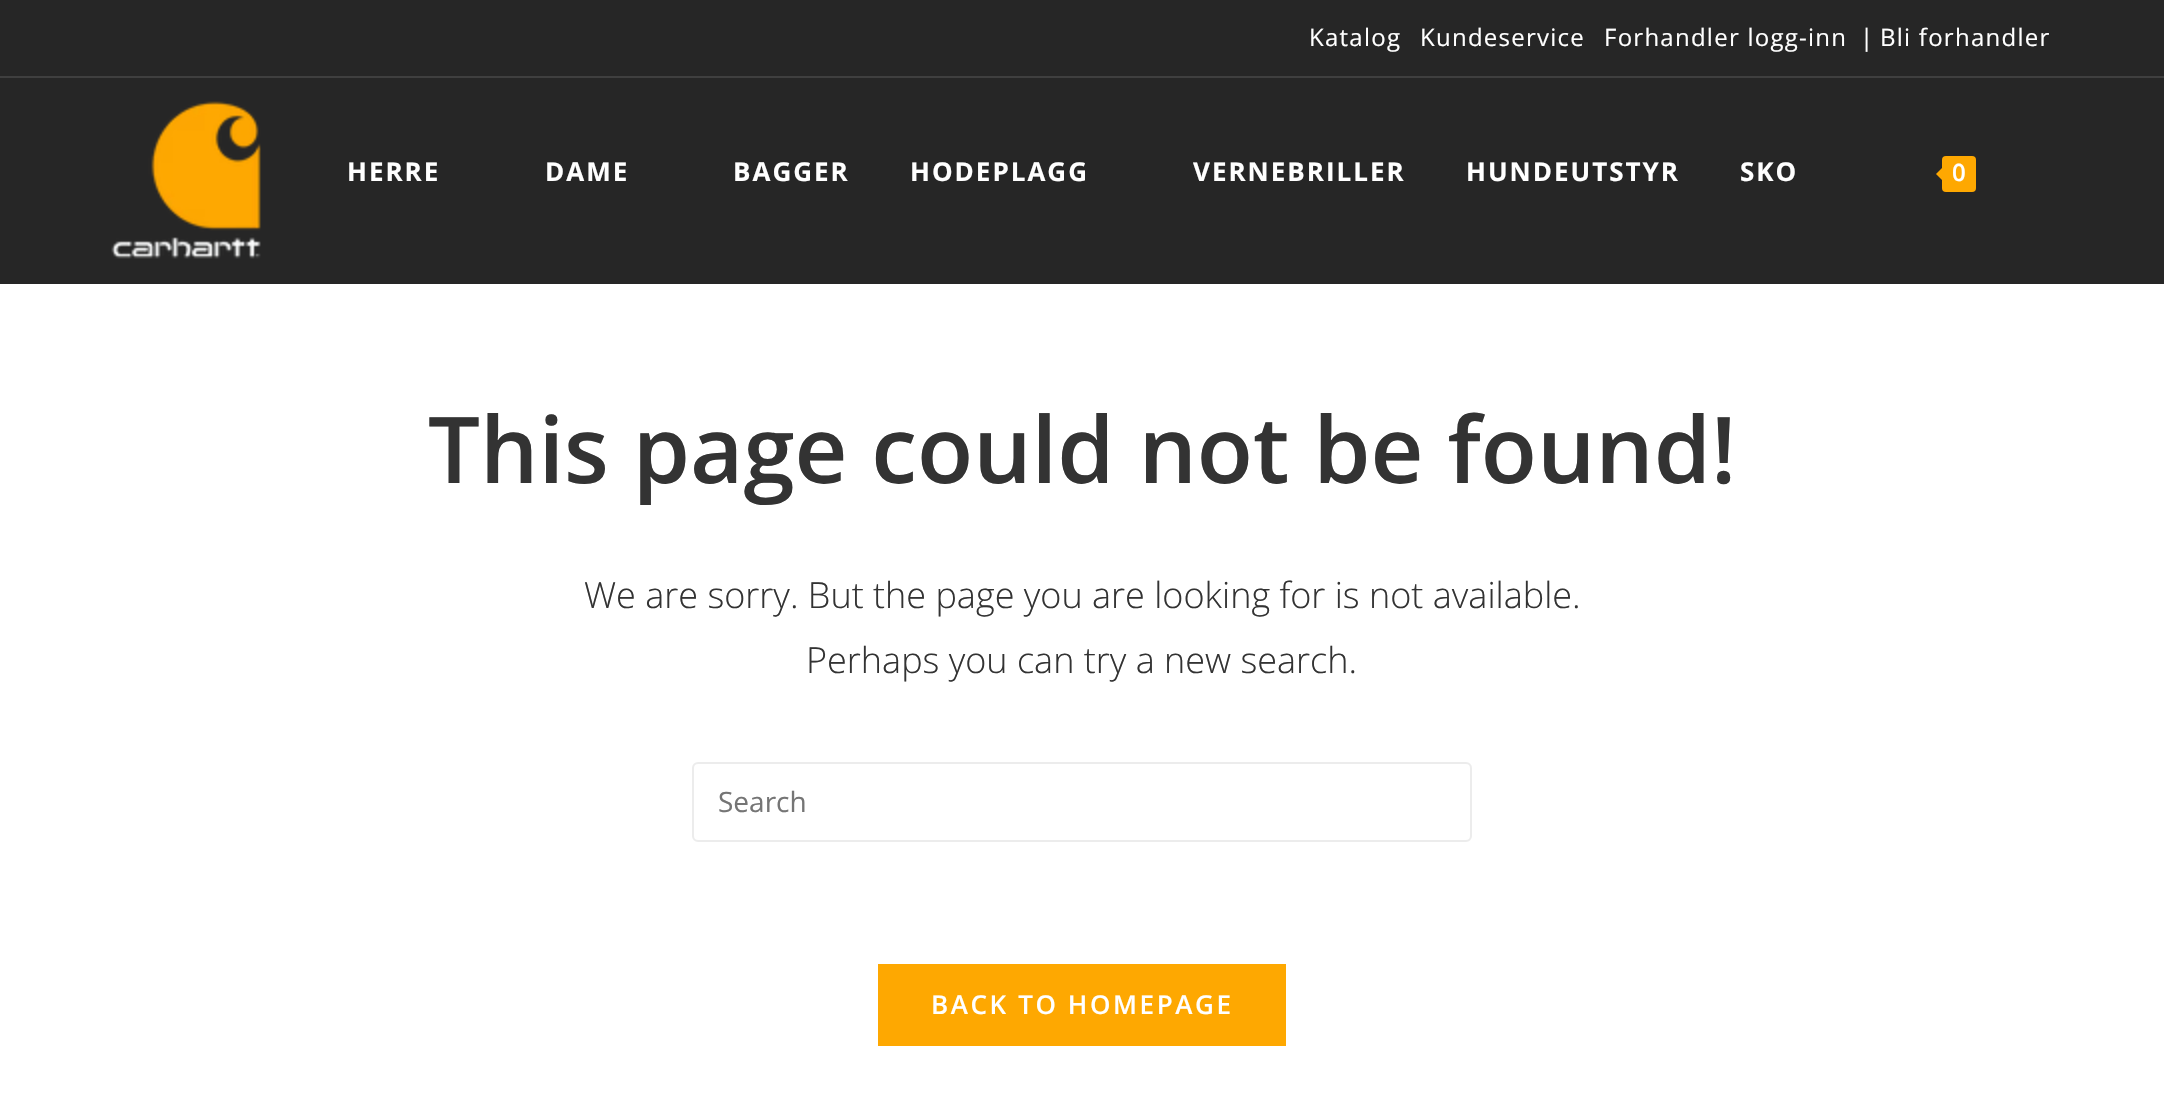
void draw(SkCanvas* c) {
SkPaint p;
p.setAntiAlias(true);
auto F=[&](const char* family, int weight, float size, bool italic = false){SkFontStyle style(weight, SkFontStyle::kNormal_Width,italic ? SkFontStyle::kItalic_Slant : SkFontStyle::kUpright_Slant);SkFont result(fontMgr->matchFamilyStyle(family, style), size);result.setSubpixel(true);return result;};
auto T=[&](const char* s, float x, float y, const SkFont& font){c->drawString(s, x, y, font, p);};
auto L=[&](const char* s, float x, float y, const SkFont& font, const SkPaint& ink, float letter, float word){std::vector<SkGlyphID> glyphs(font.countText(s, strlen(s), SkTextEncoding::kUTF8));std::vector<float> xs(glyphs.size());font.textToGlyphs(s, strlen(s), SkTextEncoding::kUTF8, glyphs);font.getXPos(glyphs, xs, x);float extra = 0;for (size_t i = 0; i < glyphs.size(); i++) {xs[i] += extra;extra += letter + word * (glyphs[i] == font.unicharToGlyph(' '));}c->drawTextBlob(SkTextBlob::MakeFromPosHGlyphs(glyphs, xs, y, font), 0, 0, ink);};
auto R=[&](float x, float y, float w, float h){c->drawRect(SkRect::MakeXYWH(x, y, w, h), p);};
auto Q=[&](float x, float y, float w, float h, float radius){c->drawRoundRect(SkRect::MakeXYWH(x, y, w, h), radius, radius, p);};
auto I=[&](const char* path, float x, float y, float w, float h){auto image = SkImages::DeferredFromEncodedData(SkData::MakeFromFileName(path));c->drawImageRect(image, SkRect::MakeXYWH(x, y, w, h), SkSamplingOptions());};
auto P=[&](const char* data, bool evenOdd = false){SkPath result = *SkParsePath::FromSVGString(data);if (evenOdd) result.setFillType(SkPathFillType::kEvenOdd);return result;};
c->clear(0xffffffff);
p.setColor(0xff262626);
R(0,0,2164,76);
p.setColor(0xff3f3f3f);
R(0,76,2164,2);
auto f1 = F("Open Sans",400,24);
p.setColor(0xffffffff);
L("Katalog",1309,46,f1,p,1.25,0);
L("Kundeservice",1420,46,f1,p,1.25,0);
L("Forhandler logg-inn",1604,46,f1,p,1.25,0);
L("|",1860,46,f1,p,1.25,0);
L("Bli forhandler",1880,46,f1,p,1.25,0);
p.setColor(0xff262626);
R(0,78,2164,206);
I("1.png",111,101,150,158);
auto f2 = F("Open Sans",700,26);
p.setColor(0xffffffff);
L("HERRE",347,181,f2,p,2,0);
L("DAME",545,181,f2,p,2,0);
L("BAGGER",733,181,f2,p,2,0);
L("HODEPLAGG",910,181,f2,p,2,0);
L("VERNEBRILLER",1193,181,f2,p,2,0);
L("HUNDEUTSTYR",1466,181,f2,p,2,0);
L("SKO",1740,181,f2,p,2,0);
p.setColor(0xfffea801);
Q(1942,156,34,36,4);
c->drawPath(P("M1946 164v20l-10-10z"),p);
auto f3 = F("Open Sans",600,24);
p.setColor(0xffffffff);
T("0",1952,181,f3);
auto f4 = F("Open Sans",600,92);
p.setColor(0xff333333);
T("This page could not be found!",428,483,f4);
auto f5 = F("Open Sans",300,36);
T("We are sorry. But the page you are looking for is not available.",584,608,f5);
T("Perhaps you can try a new search.",806,673,f5);
p.setStroke(true);
p.setStrokeWidth(2);
p.setColor(0xffececec);
c->drawRoundRect(SkRect::MakeXYWH(693,763,778,78),5,5,p);
auto f6 = F("Open Sans",400,28);
p.setStroke(false);
p.setColor(0xff757575);
T("Search",718,812,f6);
p.setColor(0xfffea801);
R(878,964,408,82);
auto f7 = F("Open Sans",600,26);
p.setColor(0xffffffff);
L("BACK TO HOMEPAGE",931,1014,f7,p,2.6,0);
}
